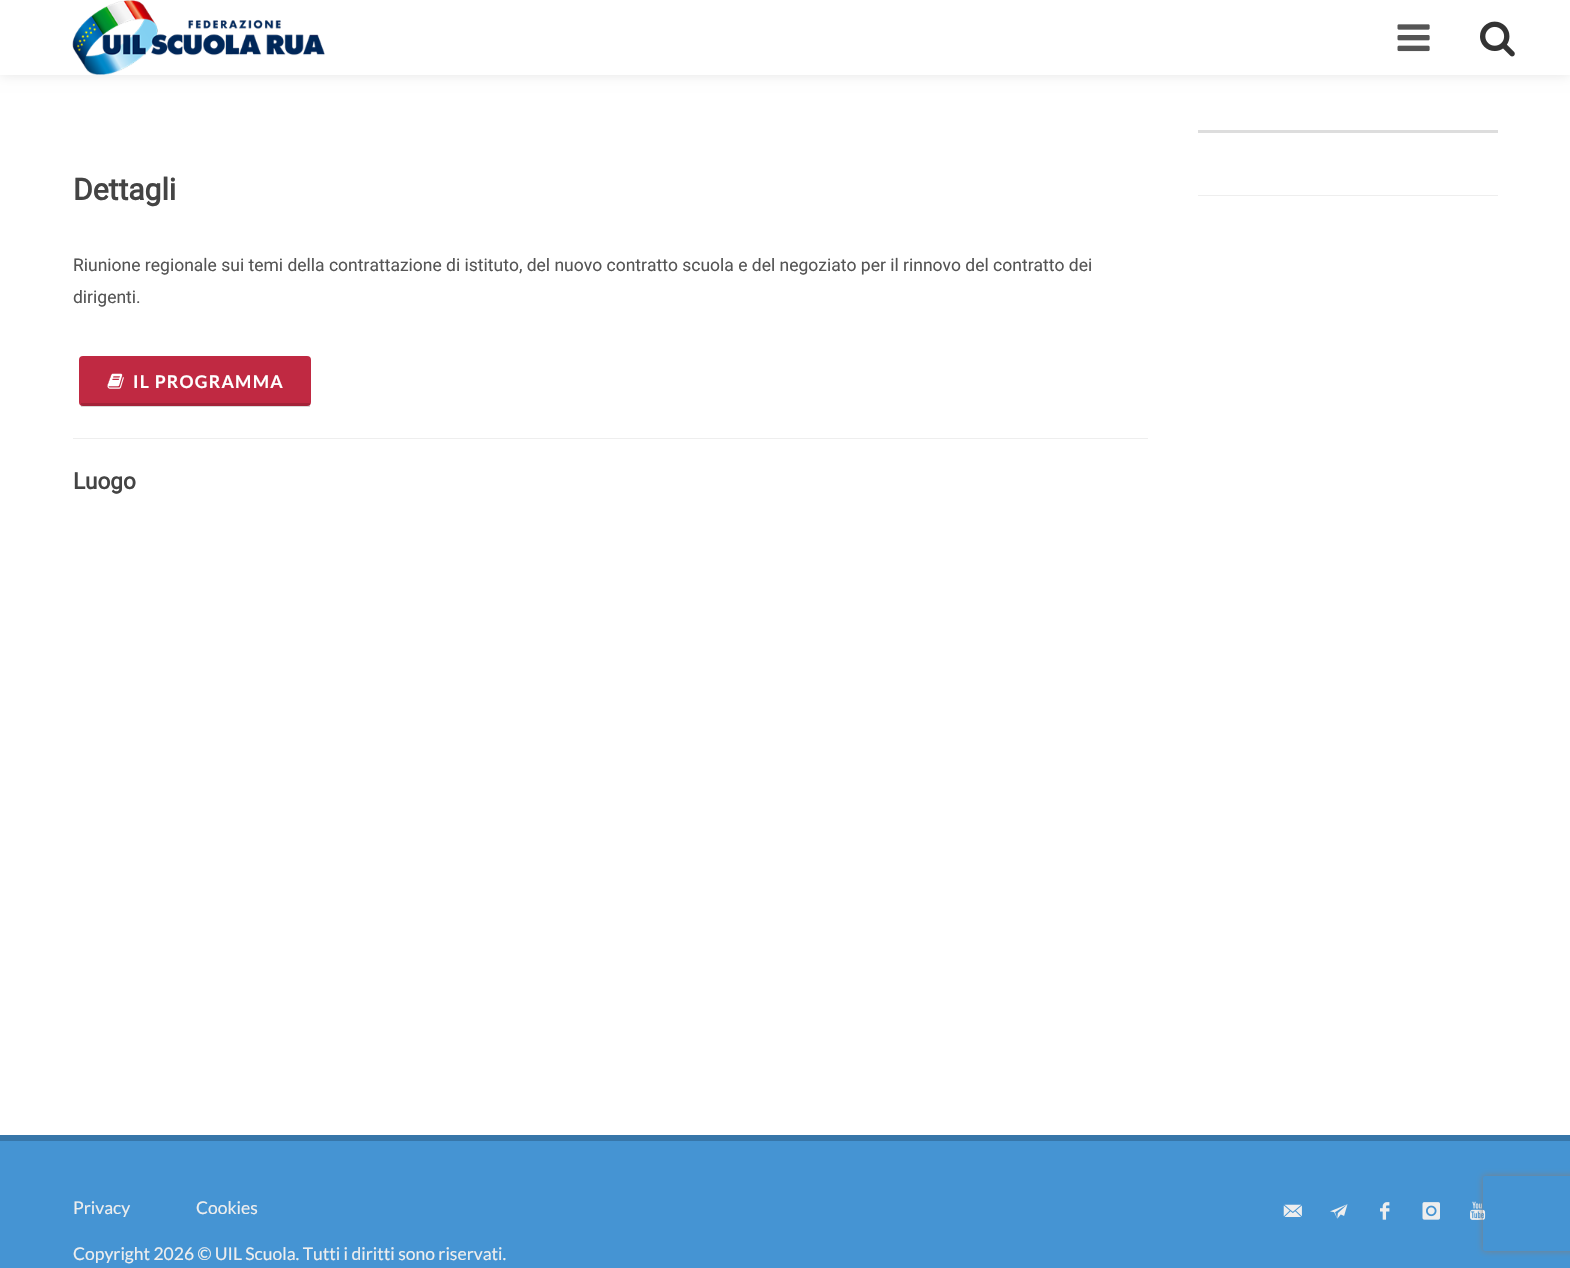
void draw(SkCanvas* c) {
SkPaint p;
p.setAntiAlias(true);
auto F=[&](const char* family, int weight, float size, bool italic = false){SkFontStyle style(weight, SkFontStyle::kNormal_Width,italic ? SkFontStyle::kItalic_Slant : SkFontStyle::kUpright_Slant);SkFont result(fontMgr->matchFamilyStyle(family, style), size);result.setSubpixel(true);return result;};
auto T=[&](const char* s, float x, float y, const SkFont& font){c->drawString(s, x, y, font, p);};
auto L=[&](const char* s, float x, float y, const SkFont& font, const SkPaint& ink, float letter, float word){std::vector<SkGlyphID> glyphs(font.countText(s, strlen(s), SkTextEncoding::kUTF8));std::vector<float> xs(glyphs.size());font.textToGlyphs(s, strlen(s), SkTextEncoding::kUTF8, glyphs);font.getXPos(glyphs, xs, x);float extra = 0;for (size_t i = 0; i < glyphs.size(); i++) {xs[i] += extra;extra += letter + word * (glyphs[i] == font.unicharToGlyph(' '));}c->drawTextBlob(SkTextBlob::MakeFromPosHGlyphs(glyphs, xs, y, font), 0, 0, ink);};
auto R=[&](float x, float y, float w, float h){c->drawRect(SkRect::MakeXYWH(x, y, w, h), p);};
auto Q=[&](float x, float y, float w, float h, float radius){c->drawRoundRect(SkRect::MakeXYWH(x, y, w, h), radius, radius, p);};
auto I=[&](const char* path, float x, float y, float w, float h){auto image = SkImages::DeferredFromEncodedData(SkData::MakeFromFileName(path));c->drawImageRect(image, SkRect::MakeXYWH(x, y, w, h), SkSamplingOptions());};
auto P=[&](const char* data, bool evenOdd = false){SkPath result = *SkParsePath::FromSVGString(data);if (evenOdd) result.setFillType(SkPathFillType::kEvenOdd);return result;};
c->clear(0xffffffff);
p.setColor(0x1a000000);
p.setMaskFilter(SkMaskFilter::MakeBlur(kNormal_SkBlurStyle, 6));
c->drawRect(SkRect::MakeXYWH(0,0,1570,75),p);
p.setMaskFilter(nullptr);
p.setColor(0xffffffff);
R(0,0,1570,75);
I("1.png",72,0,253,75);
I("2.png",1397,24,33,28);
I("3.png",1480,21,35,36);
p.setColor(0xffdddddd);
R(1198,130,300,3);
p.setColor(0xffeeeeee);
R(1198,195,300,1);
auto f1 = F("Roboto",700,30);
p.setColor(0xff444444);
T("Dettagli",73,200,f1);
auto f2 = F("Roboto",400,17.5);
p.setColor(0xff555555);
T("Riunione regionale sui temi della contrattazione di istituto, del nuovo contratto scuola e del negoziato per il rinnovo del contratto dei",73,271,f2);
T("dirigenti.",73,303,f2);
p.setColor(0xffc02942);
Q(79,356,232,50,4);
p.setColor(0x26000000);
R(81,403,229,4);
I("4.png",107,373,17,16);
auto f3 = F("Lato",700,17.5);
p.setColor(0xffffffff);
L("IL PROGRAMMA",133,388,f3,p,1.25,0);
p.setColor(0xffeeeeee);
R(73,438,1075,1);
auto f4 = F("Roboto",700,22.5);
p.setColor(0xff444444);
T("Luogo",73,489,f4);
p.setColor(0xff4594d3);
R(0,1141,1570,127);
p.setColor(0xff3776a9);
R(0,1135,1570,6);
auto f5 = F("Lato",400,17.5);
p.setColor(0xffeeeeee);
T("Privacy",73,1214,f5);
T("Cookies",196,1214,f5);
I("5.png",1283,1204,19,13);
I("6.png",1330,1204,18,15);
I("7.png",1380,1202,10,18);
I("8.png",1422,1202,18,18);
I("9.png",1470,1201,16,19);
T("Copyright 2026 © UIL Scuola. Tutti i diritti sono riservati.",73,1260,f5);
c->save();
c->clipPath(P("M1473 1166h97v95h-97zm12.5 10h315c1.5 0 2.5 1 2.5 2.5v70c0 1.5-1 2.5-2.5 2.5h-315c-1.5 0-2.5-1-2.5-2.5v-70c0-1.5 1-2.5 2.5-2.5z",true),true);
p.setColor(0xff808080);
p.setMaskFilter(SkMaskFilter::MakeBlur(kNormal_SkBlurStyle, 3));
c->drawRoundRect(SkRect::MakeXYWH(1483,1176,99,75),2.5,2.5,p);
p.setMaskFilter(nullptr);
c->restore();
}
